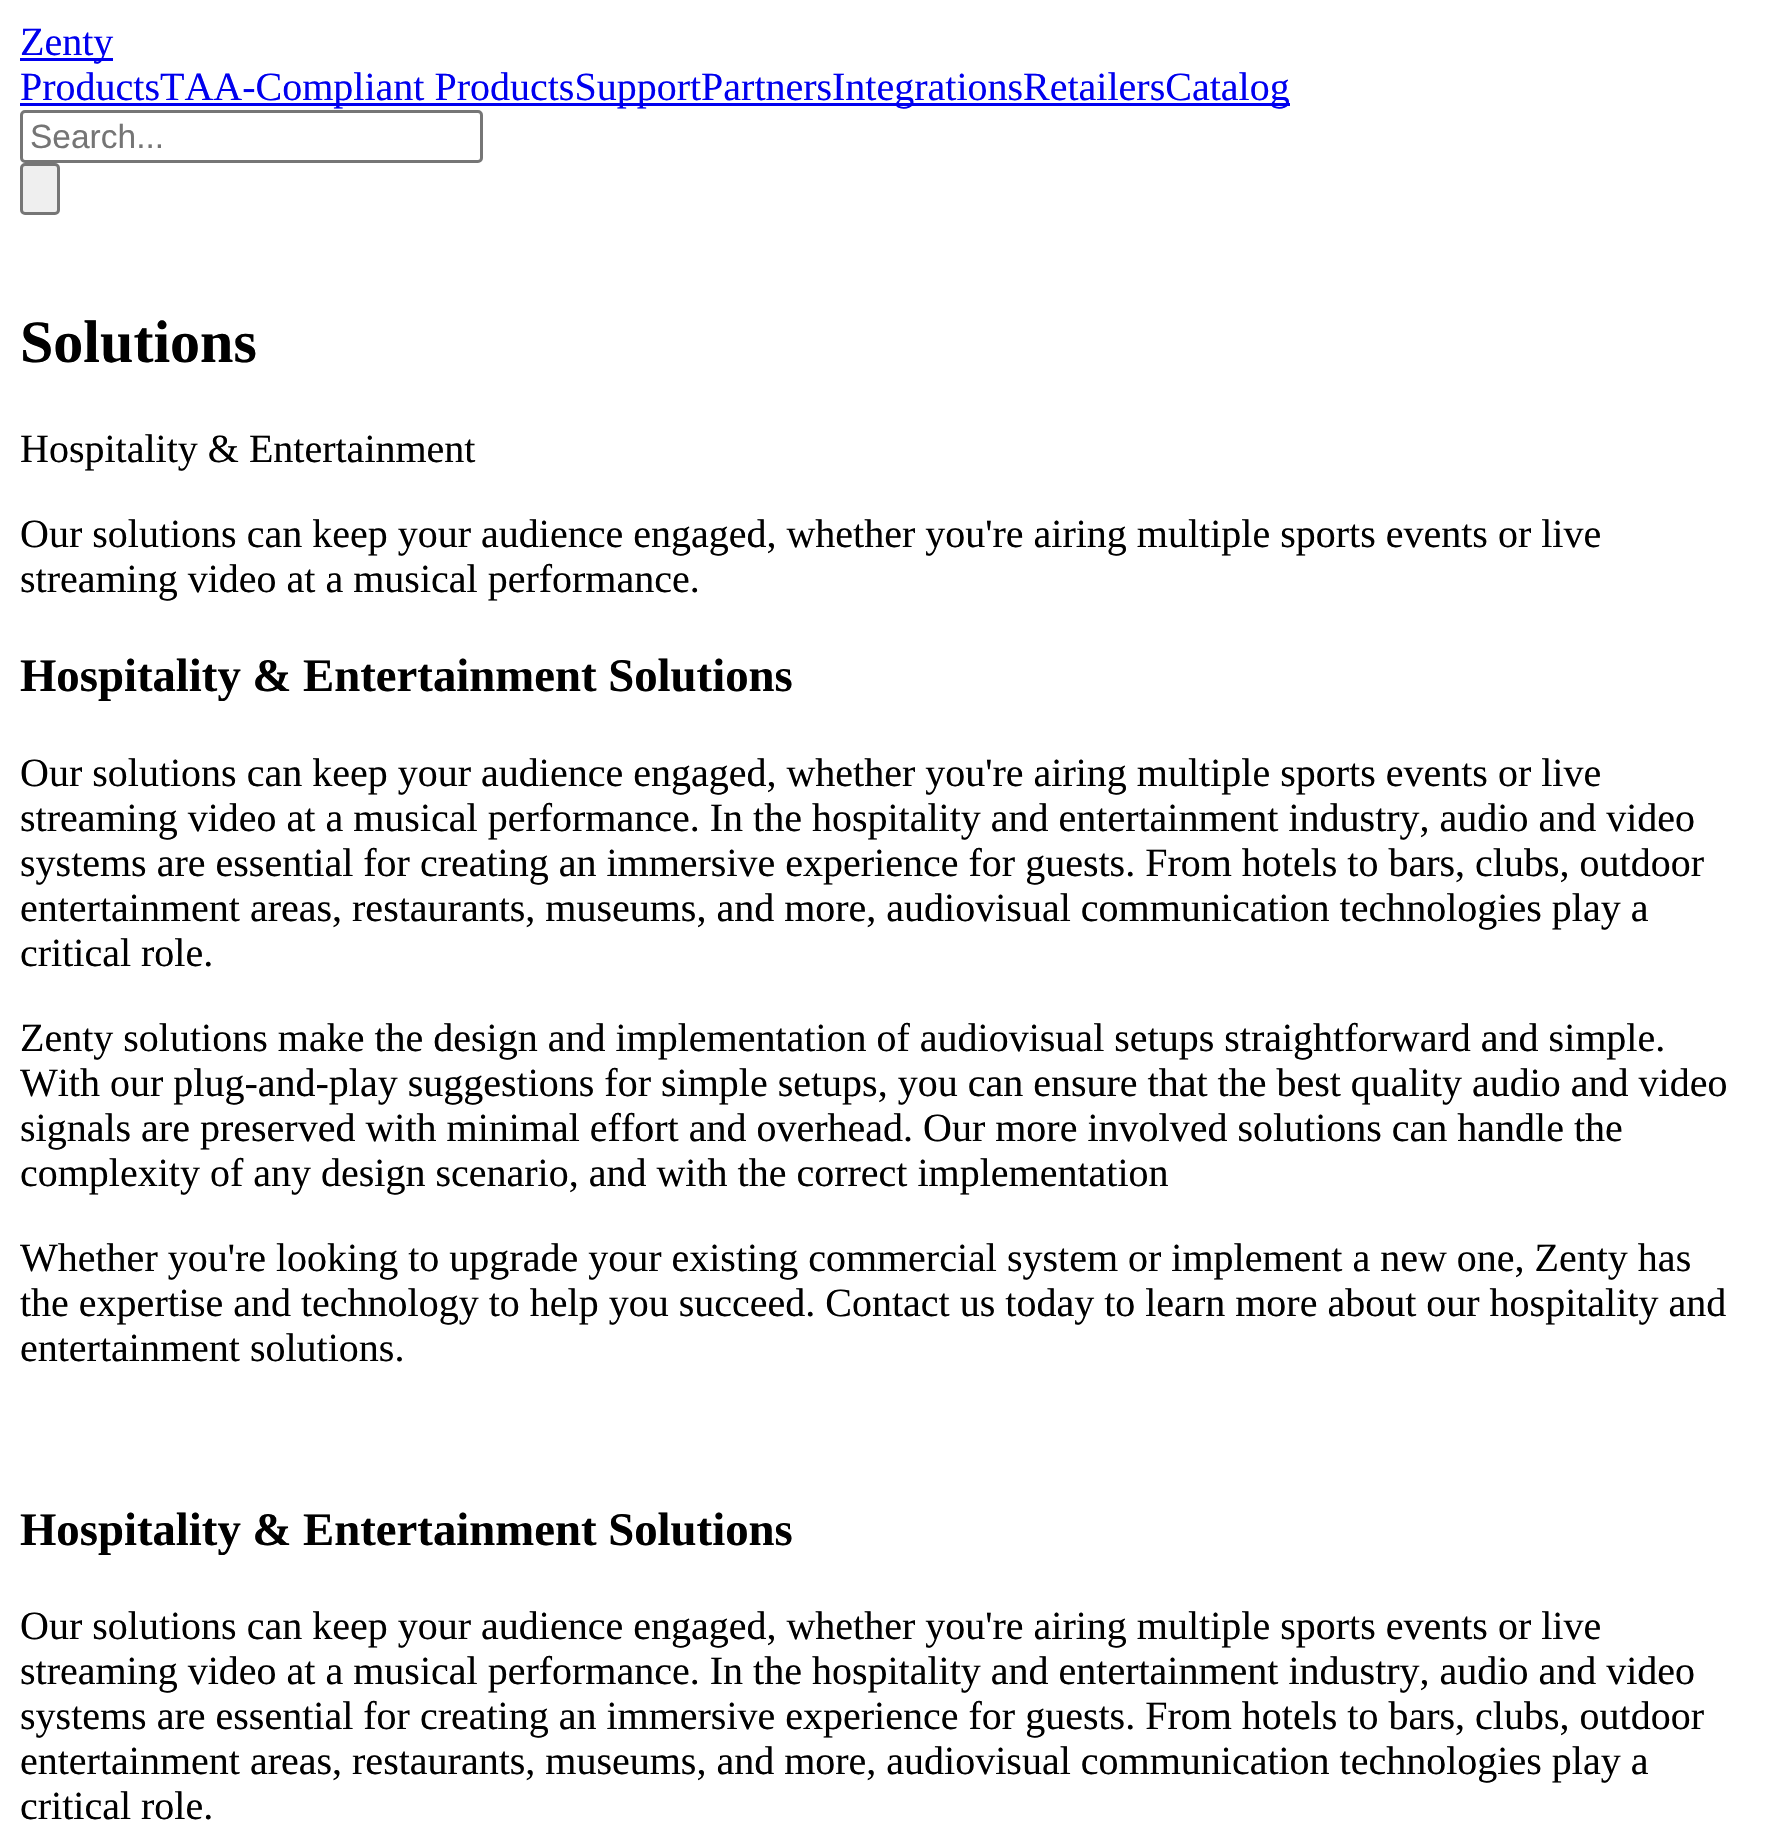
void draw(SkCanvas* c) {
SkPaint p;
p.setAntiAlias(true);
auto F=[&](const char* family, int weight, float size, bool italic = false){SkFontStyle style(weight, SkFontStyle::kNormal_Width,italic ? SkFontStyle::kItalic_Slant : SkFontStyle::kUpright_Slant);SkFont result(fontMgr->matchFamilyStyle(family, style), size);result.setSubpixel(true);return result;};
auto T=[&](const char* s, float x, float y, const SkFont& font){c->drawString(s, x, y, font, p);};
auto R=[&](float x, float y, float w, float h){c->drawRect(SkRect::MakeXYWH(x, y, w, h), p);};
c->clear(0xffffffff);
p.setColor(0xff0000ee);
R(20,58,93,3);
auto f1 = F("Liberation Serif",400,40);
T("Zenty",20,55,f1);
R(20,103,680,3);
T("ProductsTAA-Compliant ProductsSupportPartners",20,100,f1);
R(700,103,590,3);
T("IntegrationsRetailersCatalog",832,100,f1);
p.setStroke(true);
p.setStrokeWidth(3);
p.setColor(0xff767676);
c->drawRoundRect(SkRect::MakeXYWH(21.5,111.5,460,50),3.5,3.5,p);
auto f2 = F("Liberation Sans",400,33.5);
p.setStroke(false);
p.setColor(0xff757575);
T("Search...",30,148,f2);
p.setColor(0xffefefef);
c->drawRoundRect(SkRect::MakeXYWH(21.5,164.5,37,49),3.5,3.5,p);
p.setStroke(true);
p.setColor(0xff767676);
c->drawRoundRect(SkRect::MakeXYWH(21.5,164.5,37,49),3.5,3.5,p);
auto f3 = F("Liberation Serif",700,60);
p.setStroke(false);
p.setColor(0xff000000);
T("Solutions",20,362,f3);
T("Hospitality & Entertainment",20,462,f1);
T("Our solutions can keep your audience engaged, whether you're airing multiple sports events or live",20,547,f1);
T("streaming video at a musical performance.",20,592,f1);
auto f4 = F("Liberation Serif",700,46.75);
T("Hospitality & Entertainment Solutions",20,691,f4);
T("Our solutions can keep your audience engaged, whether you're airing multiple sports events or live",20,786,f1);
T("streaming video at a musical performance. In the hospitality and entertainment industry, audio and video",20,831,f1);
T("systems are essential for creating an immersive experience for guests. From hotels to bars, clubs, outdoor",20,876,f1);
T("entertainment areas, restaurants, museums, and more, audiovisual communication technologies play a",20,921,f1);
T("critical role.",20,966,f1);
T("Zenty solutions make the design and implementation of audiovisual setups straightforward and simple.",20,1051,f1);
T("With our plug-and-play suggestions for simple setups, you can ensure that the best quality audio and video",20,1096,f1);
T("signals are preserved with minimal effort and overhead. Our more involved solutions can handle the",20,1141,f1);
T("complexity of any design scenario, and with the correct implementation",20,1186,f1);
T("Whether you're looking to upgrade your existing commercial system or implement a new one, Zenty has",20,1271,f1);
T("the expertise and technology to help you succeed. Contact us today to learn more about our hospitality and",20,1316,f1);
T("entertainment solutions.",20,1361,f1);
T("Hospitality & Entertainment Solutions",20,1545,f4);
T("Our solutions can keep your audience engaged, whether you're airing multiple sports events or live",20,1639,f1);
T("streaming video at a musical performance. In the hospitality and entertainment industry, audio and video",20,1684,f1);
T("systems are essential for creating an immersive experience for guests. From hotels to bars, clubs, outdoor",20,1729,f1);
T("entertainment areas, restaurants, museums, and more, audiovisual communication technologies play a",20,1774,f1);
T("critical role.",20,1819,f1);
}
